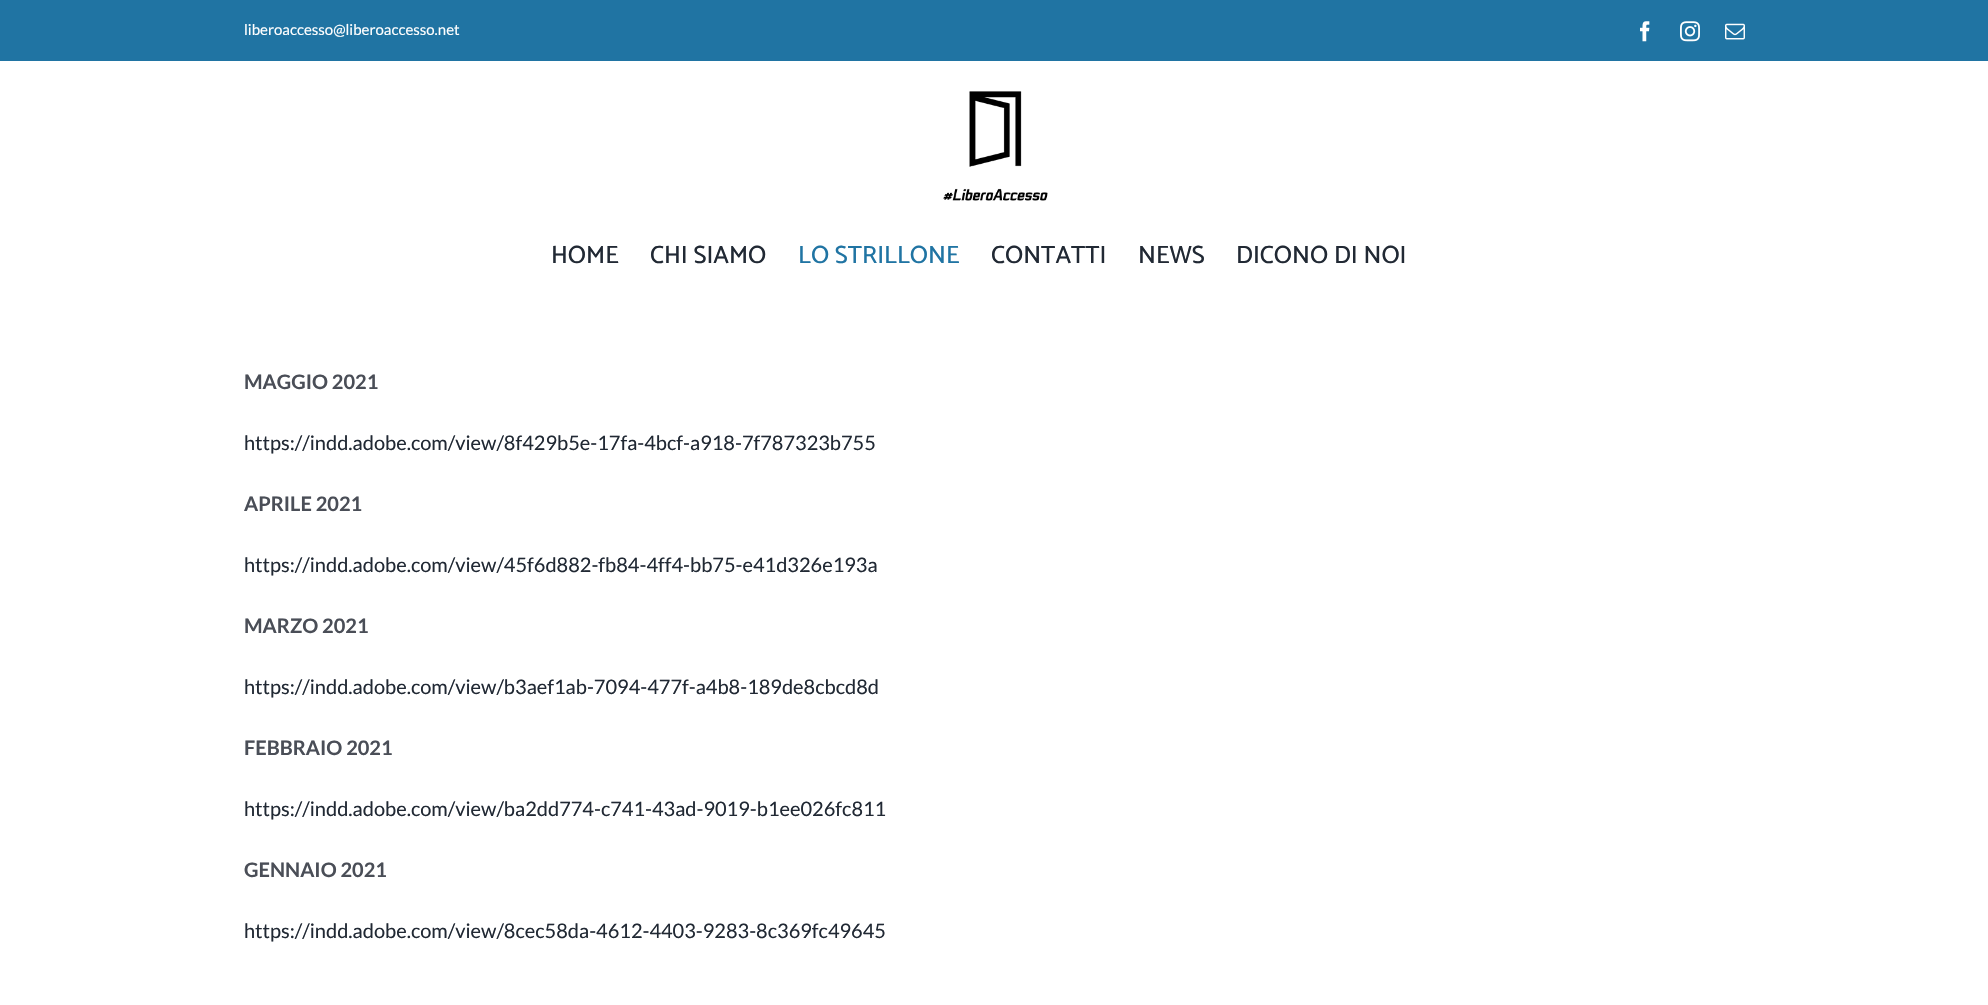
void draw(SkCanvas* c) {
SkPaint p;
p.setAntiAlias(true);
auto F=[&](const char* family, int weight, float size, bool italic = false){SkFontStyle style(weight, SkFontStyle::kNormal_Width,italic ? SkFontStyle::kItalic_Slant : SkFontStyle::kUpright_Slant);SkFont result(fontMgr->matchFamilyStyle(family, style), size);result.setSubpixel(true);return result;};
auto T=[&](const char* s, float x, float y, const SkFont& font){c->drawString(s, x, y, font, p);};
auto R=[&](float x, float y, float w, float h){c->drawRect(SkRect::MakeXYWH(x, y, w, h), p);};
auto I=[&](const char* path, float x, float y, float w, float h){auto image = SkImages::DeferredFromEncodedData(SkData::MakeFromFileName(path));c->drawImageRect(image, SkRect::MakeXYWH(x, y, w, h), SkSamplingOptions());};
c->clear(0xffffffff);
p.setColor(0xff2074a3);
R(0,0,1988,61);
auto f1 = F("Lato",400,15);
p.setColor(0xffffffff);
T("liberoaccesso@liberoaccesso.net",244,35,f1);
I("1.png",1640,21,10,21);
I("2.png",1680,21,20,21);
I("3.png",1725,23,20,17);
I("4.png",943,91,105,110);
auto f2 = F("Catamaran",500,25);
p.setColor(0xff212934);
T("HOME",551,263,f2);
T("CHI SIAMO",650,263,f2);
p.setColor(0xff2074a3);
T("LO STRILLONE",798,263,f2);
p.setColor(0xff212934);
T("CONTATTI",991,263,f2);
T("NEWS",1138,263,f2);
T("DICONO DI NOI",1236,263,f2);
auto f3 = F("Lato",700,20);
p.setColor(0xff4a4e57);
T("MAGGIO 2021",244,389,f3);
auto f4 = F("Lato",400,20);
p.setColor(0xff212934);
T("https://indd.adobe.com/view/8f429b5e-17fa-4bcf-a918-7f787323b755",244,450,f4);
p.setColor(0xff4a4e57);
T("APRILE 2021",244,511,f3);
p.setColor(0xff212934);
T("https://indd.adobe.com/view/45f6d882-fb84-4ff4-bb75-e41d326e193a",244,572,f4);
p.setColor(0xff4a4e57);
T("MARZO 2021",244,633,f3);
p.setColor(0xff212934);
T("https://indd.adobe.com/view/b3aef1ab-7094-477f-a4b8-189de8cbcd8d",244,694,f4);
p.setColor(0xff4a4e57);
T("FEBBRAIO 2021",244,755,f3);
p.setColor(0xff212934);
T("https://indd.adobe.com/view/ba2dd774-c741-43ad-9019-b1ee026fc811",244,816,f4);
p.setColor(0xff4a4e57);
T("GENNAIO 2021",244,877,f3);
p.setColor(0xff212934);
T("https://indd.adobe.com/view/8cec58da-4612-4403-9283-8c369fc49645",244,938,f4);
}
